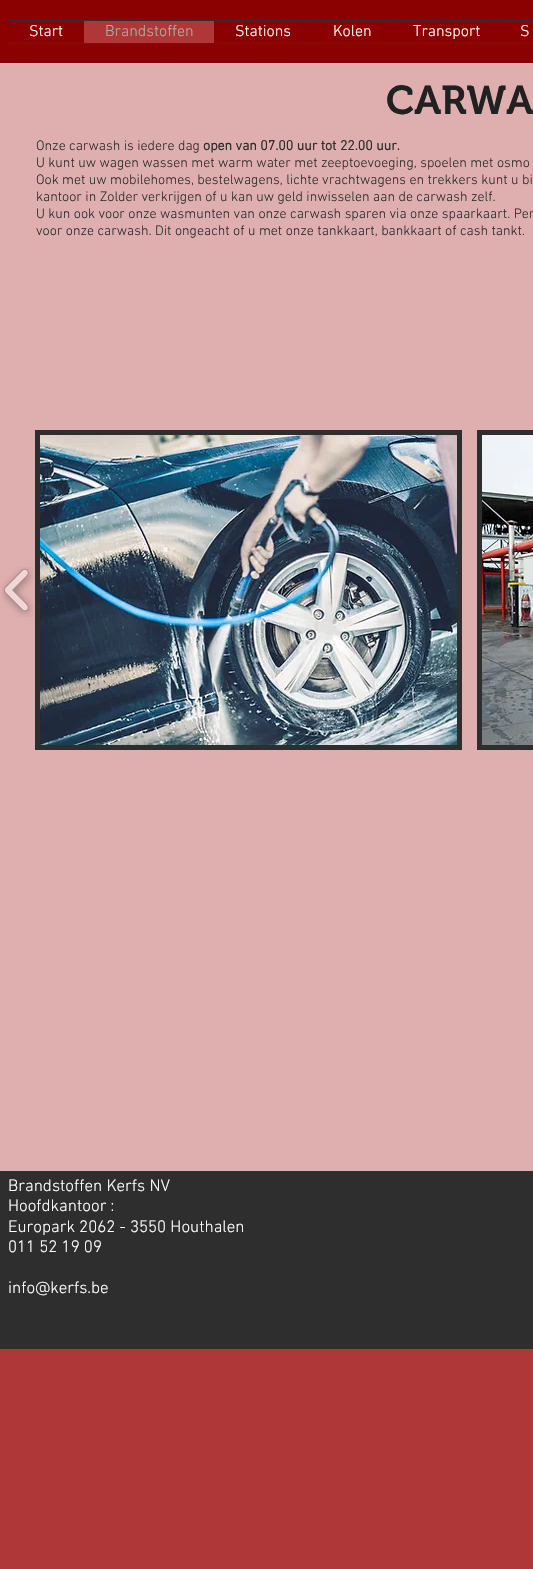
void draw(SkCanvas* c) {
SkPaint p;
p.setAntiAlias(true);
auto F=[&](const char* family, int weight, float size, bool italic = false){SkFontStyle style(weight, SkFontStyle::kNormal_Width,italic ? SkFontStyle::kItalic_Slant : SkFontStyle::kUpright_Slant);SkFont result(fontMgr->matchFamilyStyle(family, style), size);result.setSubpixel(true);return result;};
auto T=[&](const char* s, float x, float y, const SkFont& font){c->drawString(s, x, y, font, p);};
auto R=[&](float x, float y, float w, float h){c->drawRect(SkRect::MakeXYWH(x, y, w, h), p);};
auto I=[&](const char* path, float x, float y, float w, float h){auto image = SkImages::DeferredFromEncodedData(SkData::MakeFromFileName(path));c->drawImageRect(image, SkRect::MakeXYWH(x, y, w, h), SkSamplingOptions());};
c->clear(0xffb03737);
p.setColor(0xff8b0000);
R(0,0,533,63);
p.setColor(0xffe2bfbf);
R(0,63,533,1);
p.setColor(0xff2f2e2e);
R(8,20,525,1);
R(8,43,525,1);
auto f1 = F("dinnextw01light",300,16);
p.setColor(0xffffffff);
T("Start",29,36,f1);
p.setColor(0xffb03737);
R(84,21,130,22);
p.setColor(0xffb0aaa9);
T("Brandstoffen",105,36,f1);
p.setColor(0xffffffff);
T("Stations",235,36,f1);
T("Kolen",333,36,f1);
T("Transport",413,36,f1);
T("S",520,36,f1);
p.setColor(0xffdfafaf);
R(0,64,533,1107);
auto f2 = F("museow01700",600,40);
p.setColor(0xff212121);
T("CARWA",386,114,f2);
auto f3 = F("dinnextw01light",300,14);
p.setColor(0xff2f2e2e);
T("Onze carwash is iedere dag",36,150,f3);
auto f4 = F("dinnextw01light",700,14);
T("open van 07.00 uur tot 22.00 uur.",203,150,f4);
T("U kunt uw wagen wassen met warm water met zeeptoevoeging, spoelen met osmo",36,167,f3);
T("Ook met uw mobilehomes, bestelwagens, lichte vrachtwagens en trekkers kunt u bi",36,184,f3);
T("kantoor in Zolder verkrijgen of u kan uw geld inwisselen aan de carwash zelf.",36,201,f3);
T("U kun ook voor onze wasmunten van onze carwash sparen via onze spaarkaart. Per",36,218,f3);
T("voor onze carwash. Dit ongeacht of u met onze tankkaart, bankkaart of cash tankt.",36,235,f3);
I("1.png",1,567,33,50);
R(35,430,427,320);
I("2.png",40,435,417,310);
R(477,430,56,320);
I("3.png",482,435,51,310);
R(0,1171,533,178);
auto f5 = F("dinnextw01light",300,17);
p.setColor(0xffffffff);
T("Brandstoffen Kerfs NV",8,1191,f5);
T("Hoofdkantoor :",8,1211,f5);
T("Europark 2062 - 3550 Houthalen",8,1232,f5);
T("011 52 19 09",8,1252,f5);
T("info@kerfs.be",8,1293,f5);
}
